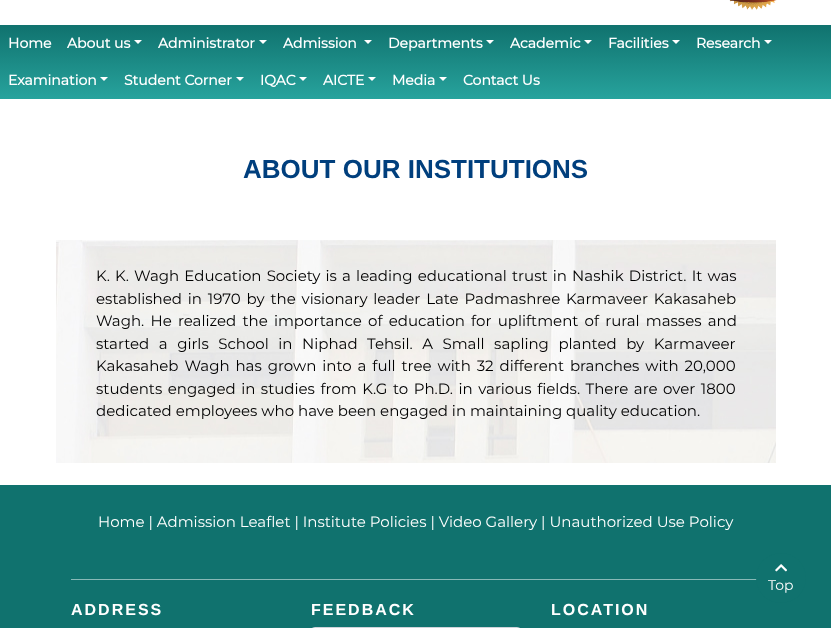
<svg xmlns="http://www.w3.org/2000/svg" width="831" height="628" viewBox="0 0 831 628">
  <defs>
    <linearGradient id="g1" gradientUnits="userSpaceOnUse" x1="416" y1="25" x2="416" y2="99"><stop offset="0" stop-color="rgb(16,114,110)"/><stop offset="1" stop-color="rgb(39,163,157)"/></linearGradient>
  </defs>
  <rect width="100%" height="100%" fill="rgb(255,255,255)"/>
  <image x="729" y="0" width="48" height="10" href="pic1.png"/>
  <rect x="0" y="25" width="831" height="74" fill="url(#g1)"/>
  <g font-family="Montserrat" font-size="14" font-weight="bold" fill="rgb(255,255,255)">
    <text x="8" y="48">Home</text>
    <text x="67" y="48">About us</text>
  </g>
  <path d="M134 40H142L138 44Z" fill="rgb(255,255,255)"/>
  <text x="158" y="48" font-family="Montserrat" font-size="14" font-weight="bold" fill="rgb(255,255,255)">Administrator</text>
  <path d="M259 40H267L263 44Z" fill="rgb(255,255,255)"/>
  <text x="283" y="48" font-family="Montserrat" font-size="14" font-weight="bold" fill="rgb(255,255,255)">Admission</text>
  <path d="M364 40H372L368 44Z" fill="rgb(255,255,255)"/>
  <text x="388" y="48" font-family="Montserrat" font-size="14" font-weight="bold" fill="rgb(255,255,255)">Departments</text>
  <path d="M486 40H494L490 44Z" fill="rgb(255,255,255)"/>
  <text x="510" y="48" font-family="Montserrat" font-size="14" font-weight="bold" fill="rgb(255,255,255)">Academic</text>
  <path d="M584 40H592L588 44Z" fill="rgb(255,255,255)"/>
  <text x="608" y="48" font-family="Montserrat" font-size="14" font-weight="bold" fill="rgb(255,255,255)">Facilities</text>
  <path d="M672 40H680L676 44Z" fill="rgb(255,255,255)"/>
  <text x="696" y="48" font-family="Montserrat" font-size="14" font-weight="bold" fill="rgb(255,255,255)">Research</text>
  <path d="M764 40H772L768 44Z" fill="rgb(255,255,255)"/>
  <text x="8" y="85" font-family="Montserrat" font-size="14" font-weight="bold" fill="rgb(255,255,255)">Examination</text>
  <path d="M100 77H108L104 81Z" fill="rgb(255,255,255)"/>
  <text x="124" y="85" font-family="Montserrat" font-size="14" font-weight="bold" fill="rgb(255,255,255)">Student Corner</text>
  <path d="M236 77H244L240 81Z" fill="rgb(255,255,255)"/>
  <text x="260" y="85" font-family="Montserrat" font-size="14" font-weight="bold" fill="rgb(255,255,255)">IQAC</text>
  <path d="M299 77H307L303 81Z" fill="rgb(255,255,255)"/>
  <text x="323" y="85" font-family="Montserrat" font-size="14" font-weight="bold" fill="rgb(255,255,255)">AICTE</text>
  <path d="M368 77H376L372 81Z" fill="rgb(255,255,255)"/>
  <text x="392" y="85" font-family="Montserrat" font-size="14" font-weight="bold" fill="rgb(255,255,255)">Media</text>
  <path d="M439 77H447L443 81Z" fill="rgb(255,255,255)"/>
  <text x="463" y="85" font-family="Montserrat" font-size="14" font-weight="bold" fill="rgb(255,255,255)">Contact Us</text>
  <text x="243" y="178" font-family="Liberation Sans" font-size="26" font-weight="bold" fill="rgb(0,63,125)">ABOUT OUR INSTITUTIONS</text>
  <image x="56" y="240" width="720" height="223" href="pic2.png"/>
  <g font-family="Montserrat" font-size="15" fill="rgb(0,0,0)">
    <text>
      <tspan x="96" y="281" word-spacing="1.25">K. K. Wagh Education Society is a leading educational trust in Nashik District. It was</tspan>
      <tspan x="96" y="304" word-spacing="1.9">established in 1970 by the visionary leader Late Padmashree Karmaveer Kakasaheb</tspan>
      <tspan x="96" y="326" word-spacing="2.25">Wagh. He realized the importance of education for upliftment of rural masses and</tspan>
      <tspan x="96" y="349" word-spacing="5.6">started a girls School in Niphad Tehsil. A Small sapling planted by Karmaveer</tspan>
      <tspan x="96" y="371" word-spacing="2">Kakasaheb Wagh has grown into a full tree with 32 different branches with 20,000</tspan>
      <tspan x="96" y="394" word-spacing="1.6">students engaged in studies from K.G to Ph.D. in various fields. There are over 1800</tspan>
      <tspan x="96" y="416">dedicated employees who have been engaged in maintaining quality education.</tspan>
    </text>
  </g>
  <rect x="0" y="485" width="831" height="143" fill="rgb(16,114,110)"/>
  <text x="98" y="527" font-family="Montserrat" font-size="15" fill="rgb(255,255,255)">Home | Admission Leaflet | Institute Policies | Video Gallery | Unauthorized Use Policy</text>
  <rect x="71" y="579" width="690" height="1" fill="rgb(136,185,183)"/>
  <g font-family="Liberation Sans" font-size="16" font-weight="bold" letter-spacing="2" fill="rgb(255,255,255)">
    <text x="71" y="615">ADDRESS</text>
    <text x="311" y="615">FEEDBACK</text>
  </g>
  <rect x="311.5" y="627.5" width="209" height="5" rx="3.5" fill="none" stroke="rgb(206,212,218)"/>
  <text x="551" y="615" font-family="Liberation Sans" font-size="16" font-weight="bold" letter-spacing="2" fill="rgb(255,255,255)">LOCATION</text>
  <circle cx="781" cy="578" r="25" fill="rgb(16,114,110)"/>
  <image x="775" y="564" width="12" height="8" href="pic3.png"/>
  <text x="768" y="590" font-family="Montserrat" font-size="14" fill="rgb(255,255,255)">Top</text>
</svg>
